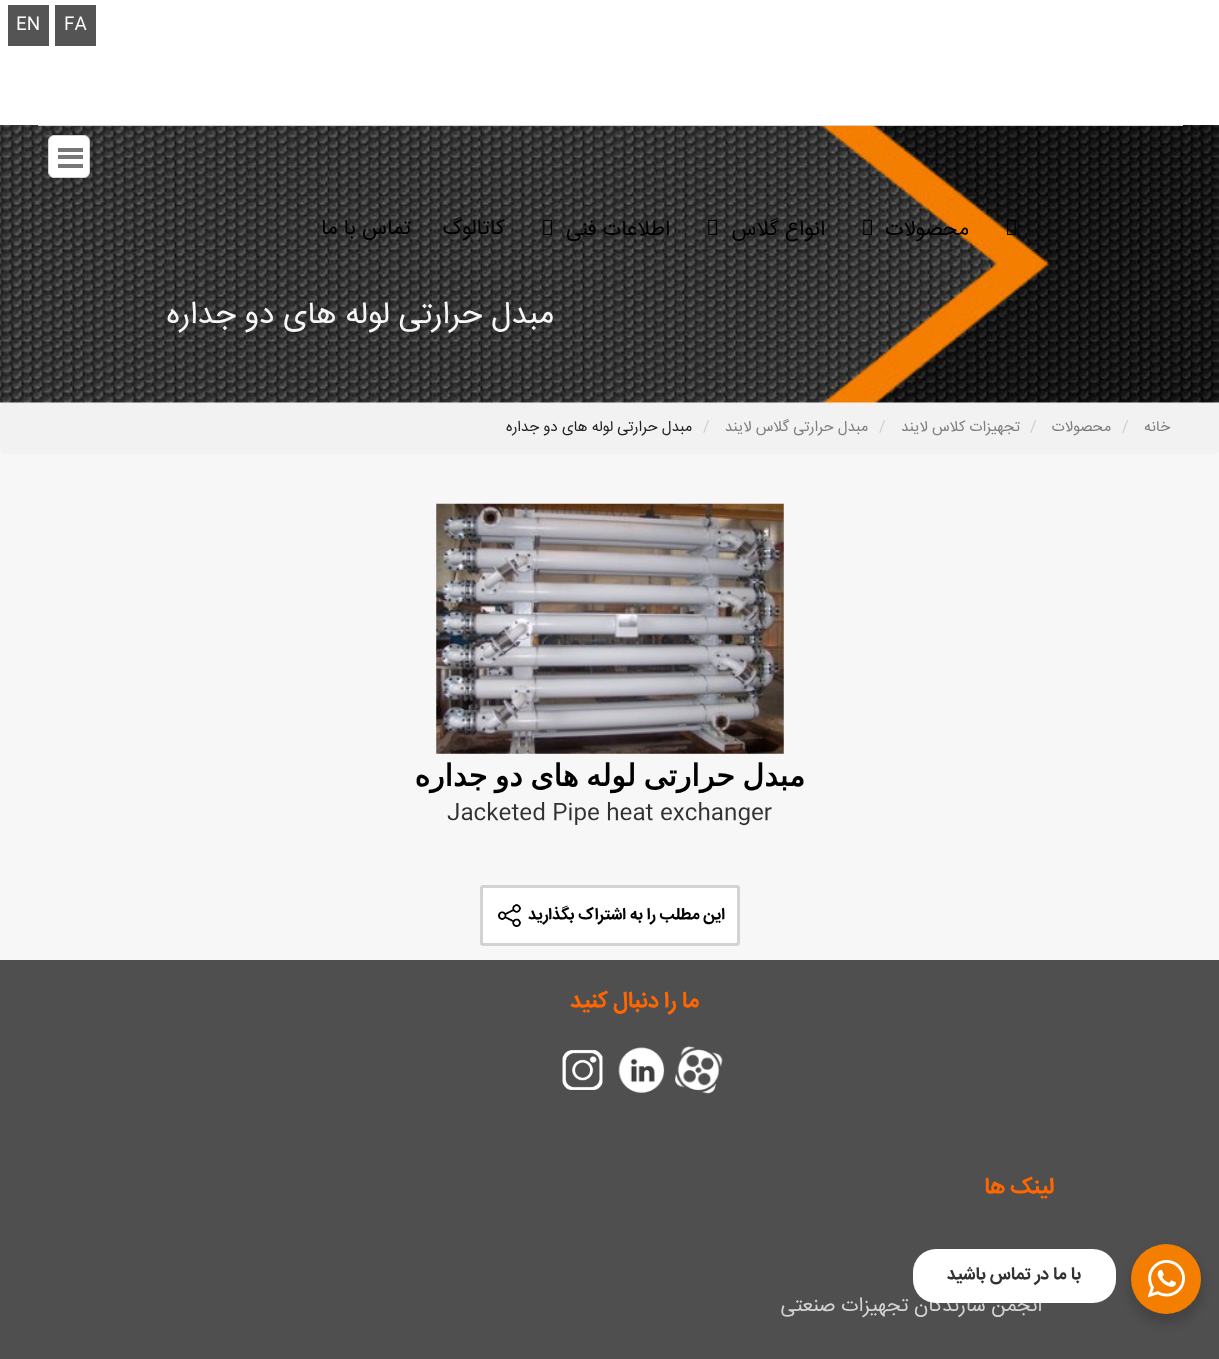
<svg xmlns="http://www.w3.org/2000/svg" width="1219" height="1359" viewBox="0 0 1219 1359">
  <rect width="100%" height="100%" fill="rgb(247,247,247)"/>
  <rect x="0" y="0" width="1219" height="125" fill="rgb(255,255,255)"/>
  <rect x="55" y="5" width="41" height="41" fill="rgb(84,84,84)"/>
  <text x="64" y="29" font-family="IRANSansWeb" font-size="17.5" fill="rgb(255,255,255)">FA</text>
  <rect x="8" y="5" width="41" height="41" fill="rgb(84,84,84)"/>
  <text x="16" y="29" font-family="IRANSansWeb" font-size="17.5" fill="rgb(255,255,255)">EN</text>
  <image x="0" y="125" width="1219" height="278" href="pic5.png"/>
  <rect x="38" y="125" width="1145" height="1" fill="rgb(211,211,211)"/>
  <rect x="48.5" y="135.5" width="41" height="42" rx="5.5" fill="rgb(255,255,255)" stroke="rgb(211,211,211)"/>
  <rect x="58" y="148" width="25" height="4" fill="rgb(119,119,119)"/>
  <rect x="58" y="155" width="25" height="4" fill="rgb(119,119,119)"/>
  <rect x="58" y="164" width="25" height="4" fill="rgb(119,119,119)"/>
  <image x="1007" y="219" width="9" height="16" href="pic1.png"/>
  <text x="969" y="235" font-family="IRANSansWeb" font-size="21.25" direction="rtl" fill="rgb(0,0,0)">محصولات</text>
  <image x="863" y="219" width="9" height="16" href="pic2.png"/>
  <text x="825" y="235" font-family="IRANSansWeb" font-size="21.25" direction="rtl" fill="rgb(0,0,0)">انواع گلاس</text>
  <image x="708" y="219" width="9" height="16" href="pic3.png"/>
  <text x="670" y="235" font-family="IRANSansWeb" font-size="21.25" direction="rtl" fill="rgb(0,0,0)">اطلاعات فنی</text>
  <image x="543" y="219" width="9" height="16" href="pic4.png"/>
  <g font-family="IRANSansWeb" font-size="21.25" direction="rtl" fill="rgb(0,0,0)">
    <text x="505" y="234">کاتالوگ</text>
    <text x="411" y="234">تماس با ما</text>
  </g>
  <text x="554" y="323" font-family="IRANSansWeb" font-size="31.25" direction="rtl" fill="rgb(246,246,246)">مبدل حرارتی لوله های دو جداره</text>
  <rect x="0" y="403" width="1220" height="51" rx="5" fill="rgb(242,242,242)"/>
  <text x="1170" y="431" font-family="IRANSansWeb" font-size="15" direction="rtl" fill="rgb(126,126,126)">خانه</text>
  <text x="1122" y="431" font-family="IRANSansWeb" font-size="15" fill="rgb(204,204,204)">/</text>
  <text x="1111" y="431" font-family="IRANSansWeb" font-size="15" direction="rtl" fill="rgb(126,126,126)">محصولات</text>
  <text x="1030" y="431" font-family="IRANSansWeb" font-size="15" fill="rgb(204,204,204)">/</text>
  <text x="1020" y="431" font-family="IRANSansWeb" font-size="15" direction="rtl" fill="rgb(126,126,126)">تجهیزات کلاس لایند</text>
  <text x="879" y="431" font-family="IRANSansWeb" font-size="15" fill="rgb(204,204,204)">/</text>
  <text x="868" y="431" font-family="IRANSansWeb" font-size="15" direction="rtl" fill="rgb(126,126,126)">مبدل حرارتی گلاس لایند</text>
  <text x="703" y="431" font-family="IRANSansWeb" font-size="15" fill="rgb(204,204,204)">/</text>
  <text x="692" y="431" font-family="IRANSansWeb" font-size="15" direction="rtl" fill="rgb(34,34,34)">مبدل حرارتی لوله های دو جداره</text>
  <image x="436" y="503" width="348" height="251" href="pic6.png"/>
  <text x="805" y="786" word-spacing="-2" font-family="DejaVu Sans" font-size="30" font-weight="bold" direction="rtl" fill="rgb(0,0,0)">مبدل حرارتی لوله های دو جداره</text>
  <text x="447" y="819" font-family="IRANSansWeb" font-size="22.5" fill="rgb(50,50,50)">Jacketed Pipe heat exchanger</text>
  <rect x="481.5" y="886.5" width="257" height="58" rx="2.5" fill="none" stroke="rgb(211,211,211)" stroke-width="3"/>
  <rect x="481.5" y="886.5" width="257" height="58" rx="2.5" fill="rgb(255,255,255)" stroke="rgb(211,211,211)" stroke-width="3"/>
  <text x="725" y="919" font-family="IRANSansWeb" font-size="16.25" font-weight="bold" direction="rtl" fill="rgb(0,0,0)">این مطلب را به اشتراک بگذارید</text>
  <image x="498" y="904" width="23" height="23" href="pic7.png"/>
  <rect x="0" y="960" width="1219" height="399" fill="rgb(79,79,79)"/>
  <text x="1042" y="1311" font-family="IRANSansWeb" font-size="20" direction="rtl" fill="rgb(211,211,211)">انجمن سازندگان تجهیزات صنعتی</text>
  <rect x="913" y="1249" width="203" height="54" rx="23" fill="rgb(255,255,255)"/>
  <rect x="1129" y="1249" width="75" height="75" rx="37.5" fill="rgba(0,0,0,0.14)" filter="blur(5px)"/>
  <circle cx="1166" cy="1279" r="35" fill="rgb(244,126,0)"/>
  <image x="1148" y="1260" width="37" height="38" href="pic8.png"/>
  <text x="699" y="1007" font-family="IRANSansWeb" font-size="22.5" font-weight="bold" direction="rtl" fill="rgb(255,102,0)">ما را دنبال کنید</text>
  <image x="675" y="1046" width="48" height="48" href="pic9.png"/>
  <image x="618" y="1047" width="47" height="46" href="pic10.png"/>
  <image x="562" y="1050" width="41" height="40" href="pic11.png"/>
  <text x="1054" y="1193" font-family="IRANSansWeb" font-size="22.5" font-weight="bold" direction="rtl" fill="rgb(255,102,0)">لینک ها</text>
  <text x="1081" y="1279" font-family="IRANSansWeb" font-size="17.5" font-weight="bold" direction="rtl" fill="rgb(50,50,50)">با ما در تماس باشید</text>
</svg>
